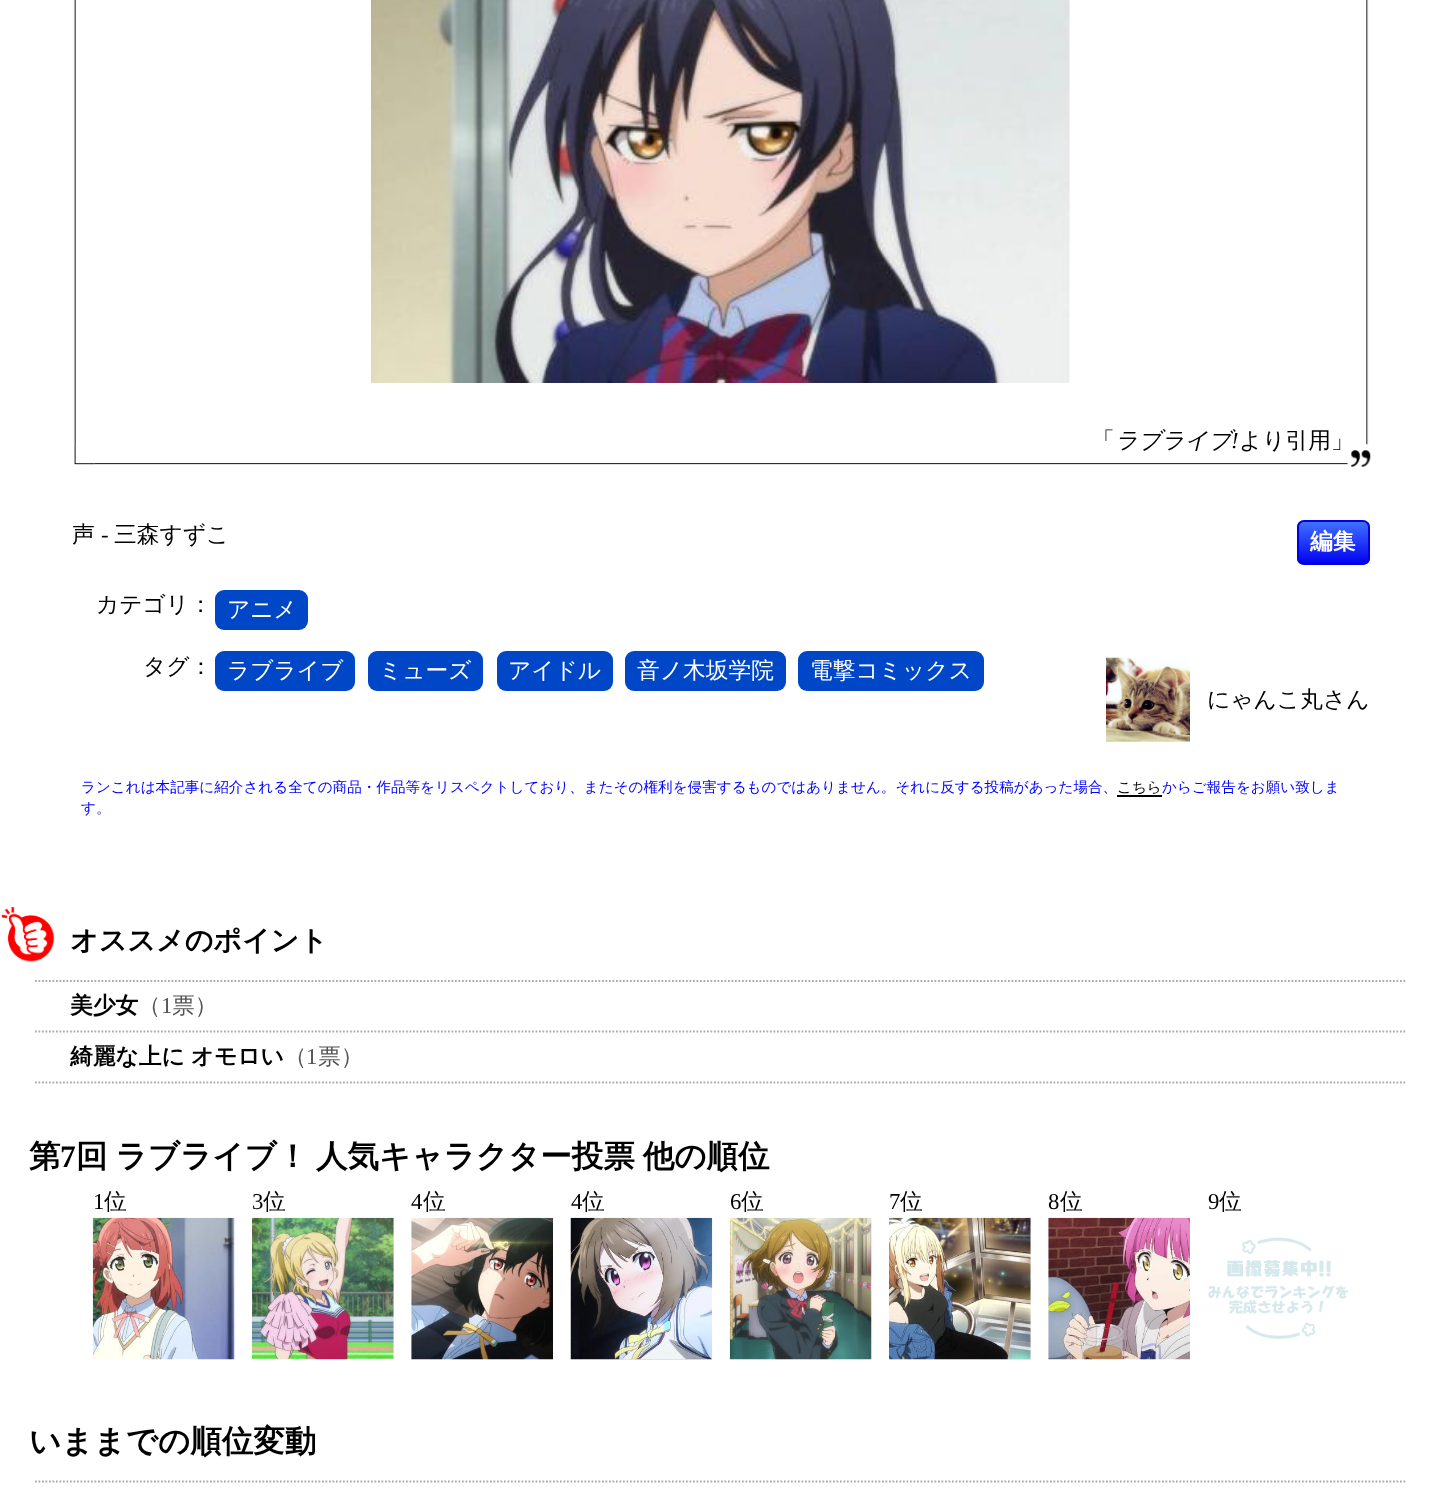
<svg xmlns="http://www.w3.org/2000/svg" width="1442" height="1495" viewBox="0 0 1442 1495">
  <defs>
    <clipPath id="clip1"><rect x="1297" y="520" width="73" height="45" rx="7"/></clipPath>
    <linearGradient id="g1" gradientUnits="userSpaceOnUse" x1="1299" y1="522" x2="1299" y2="564"><stop offset="0" stop-color="rgb(64,112,255)"/><stop offset="1" stop-color="rgb(0,0,240)"/></linearGradient>
  </defs>
  <rect width="100%" height="100%" fill="rgb(255,255,255)"/>
  <image x="73" y="0" width="1298" height="467" href="pic1.png"/>
  <image x="371" y="0" width="700" height="383" href="pic2.png"/>
  <text x="1092" y="448" font-family="WenQuanYi Zen Hei" font-size="22.75" font-weight="500" fill="rgb(0,0,0)">「</text>
  <text x="1115" y="448" font-family="WenQuanYi Zen Hei" font-size="22.75" font-weight="500" font-style="italic" fill="rgb(0,0,0)">ラブライブ</text>
  <text x="1239" y="448" font-family="WenQuanYi Zen Hei" font-size="22.75" font-weight="500" fill="rgb(0,0,0)">より引用」</text>
  <text x="1231" y="448" font-family="Liberation Serif" font-size="22.75" font-style="italic" fill="rgb(0,0,0)">!</text>
  <text x="72" y="542" font-family="WenQuanYi Zen Hei" font-size="22.75" font-weight="500" fill="rgb(0,0,0)">声</text>
  <text x="101" y="542" font-family="Liberation Serif" font-size="22.75" fill="rgb(0,0,0)">-</text>
  <g font-family="WenQuanYi Zen Hei" font-size="22.75" font-weight="500" fill="rgb(0,0,0)">
    <text x="114" y="542">三森すずこ</text>
    <text x="96" y="612">カテゴリ：</text>
  </g>
  <rect x="215" y="590" width="93" height="40" rx="9" fill="rgb(0,71,199)"/>
  <text x="227" y="617" font-family="WenQuanYi Zen Hei" font-size="22.75" font-weight="500" fill="rgb(255,255,255)">アニメ</text>
  <text x="143" y="674" font-family="WenQuanYi Zen Hei" font-size="22.75" font-weight="500" fill="rgb(0,0,0)">タグ：</text>
  <rect x="215" y="651" width="140" height="40" rx="9" fill="rgb(0,71,199)"/>
  <text x="227" y="678" font-family="WenQuanYi Zen Hei" font-size="22.75" font-weight="500" fill="rgb(255,255,255)">ラブライブ</text>
  <rect x="368" y="651" width="115" height="40" rx="9" fill="rgb(0,71,199)"/>
  <text x="379" y="678" font-family="WenQuanYi Zen Hei" font-size="22.75" font-weight="500" fill="rgb(255,255,255)">ミューズ</text>
  <rect x="497" y="651" width="116" height="40" rx="9" fill="rgb(0,71,199)"/>
  <text x="508" y="678" font-family="WenQuanYi Zen Hei" font-size="22.75" font-weight="500" fill="rgb(255,255,255)">アイドル</text>
  <rect x="625" y="651" width="161" height="40" rx="9" fill="rgb(0,71,199)"/>
  <text x="637" y="678" font-family="WenQuanYi Zen Hei" font-size="22.75" font-weight="500" fill="rgb(255,255,255)">音ノ木坂学院</text>
  <rect x="798" y="651" width="186" height="40" rx="9" fill="rgb(0,71,199)"/>
  <text x="810" y="678" font-family="WenQuanYi Zen Hei" font-size="22.75" font-weight="500" fill="rgb(255,255,255)">電撃コミックス</text>
  <g clip-path="url(#clip1)">
    <rect x="1297" y="522" width="73" height="42" fill="url(#g1)"/>
  </g>
  <rect x="1298" y="521" width="71" height="43" rx="6" fill="none" stroke="rgb(0,0,224)" stroke-width="2"/>
  <text x="1310" y="549" font-family="WenQuanYi Zen Hei" font-size="22.75" font-weight="bold" fill="rgb(255,255,255)">編集</text>
  <image x="1106" y="657" width="84" height="85" href="pic3.png"/>
  <text x="1207" y="707" font-family="WenQuanYi Zen Hei" font-size="22.75" font-weight="500" fill="rgb(0,0,0)">にゃんこ丸さん</text>
  <text x="81" y="792" font-family="WenQuanYi Zen Hei" font-size="14.58" font-weight="500" fill="rgb(0,0,255)">ランこれは本記事に紹介される全ての商品・作品等をリスペクトしており、またその権利を侵害するものではありません。それに反する投稿があった場合、</text>
  <text x="1117" y="792" font-family="WenQuanYi Zen Hei" font-size="14.58" font-weight="500" fill="rgb(0,0,0)">こちら</text>
  <rect x="1117" y="795" width="45" height="2" fill="rgb(0,0,0)"/>
  <g font-family="WenQuanYi Zen Hei" font-size="14.58" font-weight="500" fill="rgb(0,0,255)">
    <text x="1162" y="792">からご報告をお願い致しま</text>
    <text x="81" y="813">す。</text>
  </g>
  <image x="1" y="906" width="54" height="56" href="pic4.png"/>
  <text x="70" y="950" font-family="WenQuanYi Zen Hei" font-size="28" font-weight="bold" fill="rgb(0,0,0)">オススメのポイント</text>
  <path d="M35 981H1407" fill="none" stroke="rgb(170,170,170)" stroke-width="1.8" stroke-dasharray="1.75 1.75"/>
  <path d="M35 1031.5H1407" fill="none" stroke="rgb(170,170,170)" stroke-width="1.8" stroke-dasharray="1.75 1.75"/>
  <text x="70" y="1013" font-family="WenQuanYi Zen Hei" font-size="22.75" font-weight="bold" fill="rgb(0,0,0)">美少女</text>
  <text x="138" y="1013" font-family="WenQuanYi Zen Hei" font-size="22.75" font-weight="500" fill="rgb(85,85,85)">（</text>
  <text x="161" y="1013" font-family="Liberation Serif" font-size="22.75" fill="rgb(85,85,85)">1</text>
  <text x="172" y="1013" font-family="WenQuanYi Zen Hei" font-size="22.75" font-weight="500" fill="rgb(85,85,85)">票）</text>
  <path d="M35 1082.5H1407" fill="none" stroke="rgb(170,170,170)" stroke-width="1.8" stroke-dasharray="1.75 1.75"/>
  <text x="70" y="1064" word-spacing="-1" font-family="WenQuanYi Zen Hei" font-size="22.75" font-weight="bold" fill="rgb(0,0,0)">綺麗な上に オモロい</text>
  <text x="284" y="1064" font-family="WenQuanYi Zen Hei" font-size="22.75" font-weight="500" fill="rgb(85,85,85)">（</text>
  <text x="306" y="1064" font-family="Liberation Serif" font-size="22.75" fill="rgb(85,85,85)">1</text>
  <text x="318" y="1064" font-family="WenQuanYi Zen Hei" font-size="22.75" font-weight="500" fill="rgb(85,85,85)">票）</text>
  <text x="29" y="1167" font-family="WenQuanYi Zen Hei" font-size="31.5" font-weight="bold" fill="rgb(0,0,0)">第</text>
  <text x="60" y="1167" font-family="Liberation Serif" font-size="31.5" font-weight="bold" fill="rgb(0,0,0)">7</text>
  <text x="76" y="1167" word-spacing="-1.5" font-family="WenQuanYi Zen Hei" font-size="31.5" font-weight="bold" fill="rgb(0,0,0)">回 ラブライブ！ 人気キャラクター投票 他の順位</text>
  <text x="93" y="1209" font-family="Liberation Serif" font-size="22.75" fill="rgb(0,0,0)">1</text>
  <text x="104" y="1209" font-family="WenQuanYi Zen Hei" font-size="22.75" font-weight="500" fill="rgb(0,0,0)">位</text>
  <image x="92" y="1217" width="143" height="143" href="pic5.png"/>
  <text x="252" y="1209" font-family="Liberation Serif" font-size="22.75" fill="rgb(0,0,0)">3</text>
  <text x="263" y="1209" font-family="WenQuanYi Zen Hei" font-size="22.75" font-weight="500" fill="rgb(0,0,0)">位</text>
  <image x="252" y="1217" width="142" height="143" href="pic6.png"/>
  <text x="411" y="1209" font-family="Liberation Serif" font-size="22.75" fill="rgb(0,0,0)">4</text>
  <text x="423" y="1209" font-family="WenQuanYi Zen Hei" font-size="22.75" font-weight="500" fill="rgb(0,0,0)">位</text>
  <image x="411" y="1217" width="142" height="143" href="pic7.png"/>
  <text x="571" y="1209" font-family="Liberation Serif" font-size="22.75" fill="rgb(0,0,0)">4</text>
  <text x="582" y="1209" font-family="WenQuanYi Zen Hei" font-size="22.75" font-weight="500" fill="rgb(0,0,0)">位</text>
  <image x="570" y="1217" width="143" height="143" href="pic8.png"/>
  <text x="730" y="1209" font-family="Liberation Serif" font-size="22.75" fill="rgb(0,0,0)">6</text>
  <text x="741" y="1209" font-family="WenQuanYi Zen Hei" font-size="22.75" font-weight="500" fill="rgb(0,0,0)">位</text>
  <image x="729" y="1217" width="143" height="143" href="pic9.png"/>
  <text x="889" y="1209" font-family="Liberation Serif" font-size="22.75" fill="rgb(0,0,0)">7</text>
  <text x="900" y="1209" font-family="WenQuanYi Zen Hei" font-size="22.75" font-weight="500" fill="rgb(0,0,0)">位</text>
  <image x="889" y="1217" width="142" height="143" href="pic10.png"/>
  <text x="1048" y="1209" font-family="Liberation Serif" font-size="22.75" fill="rgb(0,0,0)">8</text>
  <text x="1060" y="1209" font-family="WenQuanYi Zen Hei" font-size="22.75" font-weight="500" fill="rgb(0,0,0)">位</text>
  <image x="1048" y="1217" width="142" height="143" href="pic11.png"/>
  <text x="1208" y="1209" font-family="Liberation Serif" font-size="22.75" fill="rgb(0,0,0)">9</text>
  <text x="1219" y="1209" font-family="WenQuanYi Zen Hei" font-size="22.75" font-weight="500" fill="rgb(0,0,0)">位</text>
  <image x="1208" y="1237" width="141" height="102" href="pic12.png"/>
  <text x="29" y="1452" font-family="WenQuanYi Zen Hei" font-size="31.5" font-weight="bold" fill="rgb(0,0,0)">いままでの順位変動</text>
  <path d="M35 1481.5H1407" fill="none" stroke="rgb(170,170,170)" stroke-width="1.8" stroke-dasharray="1.75 1.75"/>
</svg>
